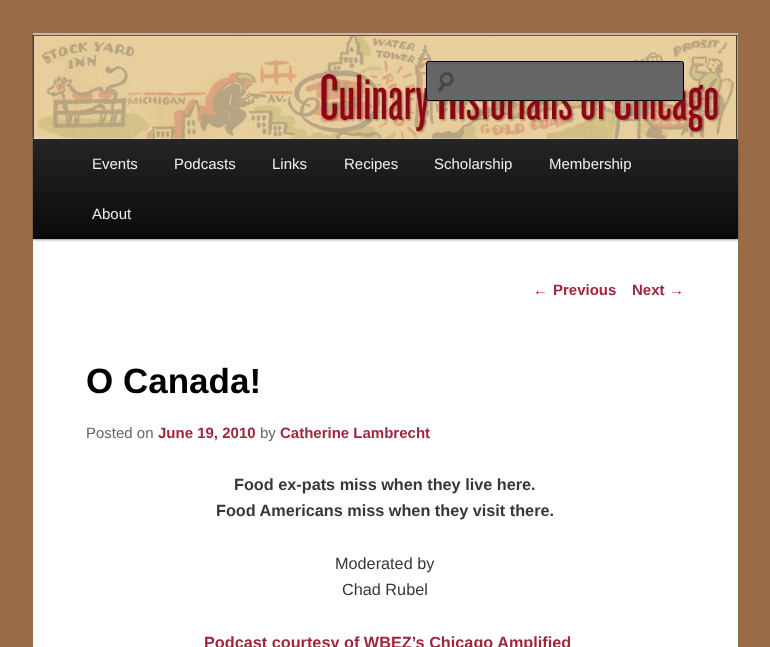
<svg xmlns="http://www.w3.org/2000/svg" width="770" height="647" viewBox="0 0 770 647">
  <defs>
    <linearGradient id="g1" gradientUnits="userSpaceOnUse" x1="385" y1="139" x2="385" y2="239"><stop offset="0" stop-color="rgb(37,37,37)"/><stop offset="1" stop-color="rgb(10,10,10)"/></linearGradient>
  </defs>
  <rect width="100%" height="100%" fill="rgb(155,107,69)"/>
  <rect x="33" y="36" width="705" height="611" fill="rgb(255,255,255)"/>
  <rect x="33" y="33" width="705" height="3" fill="rgb(187,187,187)"/>
  <rect x="33" y="140" width="705" height="100" fill="rgba(0,0,0,0.4)" filter="blur(1px)"/>
  <image x="32" y="35" width="706" height="104" href="pic1.png"/>
  <rect x="426" y="61" width="258" height="40" rx="2.5" fill="rgb(102,102,102)"/>
  <image x="437" y="72" width="17" height="21" href="pic2.png"/>
  <path d="M429 64H681C682 64 682 64 682 65V100L683 99V64L682 63H428V65C428 64 428 64 429 64Z" fill="rgb(92,92,92)"/>
  <rect x="426.5" y="61.5" width="257" height="39" rx="2" fill="none" stroke="rgb(0,0,0)"/>
  <rect x="33" y="139" width="705" height="100" fill="url(#g1)"/>
  <g font-family="Liberation Sans" font-size="15" fill="rgb(238,238,238)">
    <text x="92" y="169">Events</text>
    <text x="174" y="169">Podcasts</text>
    <text x="272" y="169">Links</text>
    <text x="344" y="169">Recipes</text>
    <text x="434" y="169">Scholarship</text>
    <text x="549" y="169">Membership</text>
    <text x="92" y="219">About</text>
  </g>
  <text x="533" y="295" font-family="Liberation Sans" font-size="15" fill="rgb(158,39,61)">←</text>
  <g font-family="Liberation Sans" font-size="15" font-weight="bold" fill="rgb(158,39,61)">
    <text x="553" y="295">Previous</text>
    <text x="632" y="295">Next</text>
  </g>
  <text x="669" y="295" font-family="Liberation Sans" font-size="15" fill="rgb(158,39,61)">→</text>
  <text x="86" y="393" font-family="Liberation Sans" font-size="35" font-weight="bold" fill="rgb(0,0,0)">O Canada!</text>
  <text x="86" y="438" font-family="Liberation Sans" font-size="15" fill="rgb(102,102,102)">Posted on</text>
  <text x="158" y="438" font-family="Liberation Sans" font-size="15" font-weight="bold" fill="rgb(158,39,61)">June 19, 2010</text>
  <text x="260" y="438" font-family="Liberation Sans" font-size="15" fill="rgb(102,102,102)">by</text>
  <text x="280" y="438" font-family="Liberation Sans" font-size="15" font-weight="bold" fill="rgb(158,39,61)">Catherine Lambrecht</text>
  <g font-family="Liberation Sans" font-size="16.25" font-weight="bold" fill="rgb(55,55,55)">
    <text x="234" y="490">Food ex-pats miss when they live here.</text>
    <text x="216" y="516">Food Americans miss when they visit there.</text>
  </g>
  <g font-family="Liberation Sans" font-size="16.25" fill="rgb(55,55,55)">
    <text x="335" y="569">Moderated by</text>
    <text x="342" y="595">Chad Rubel</text>
  </g>
  <text x="204" y="648" font-family="Liberation Sans" font-size="16.25" font-weight="bold" fill="rgb(158,39,61)">Podcast courtesy of WBEZ’s Chicago Amplified</text>
</svg>
